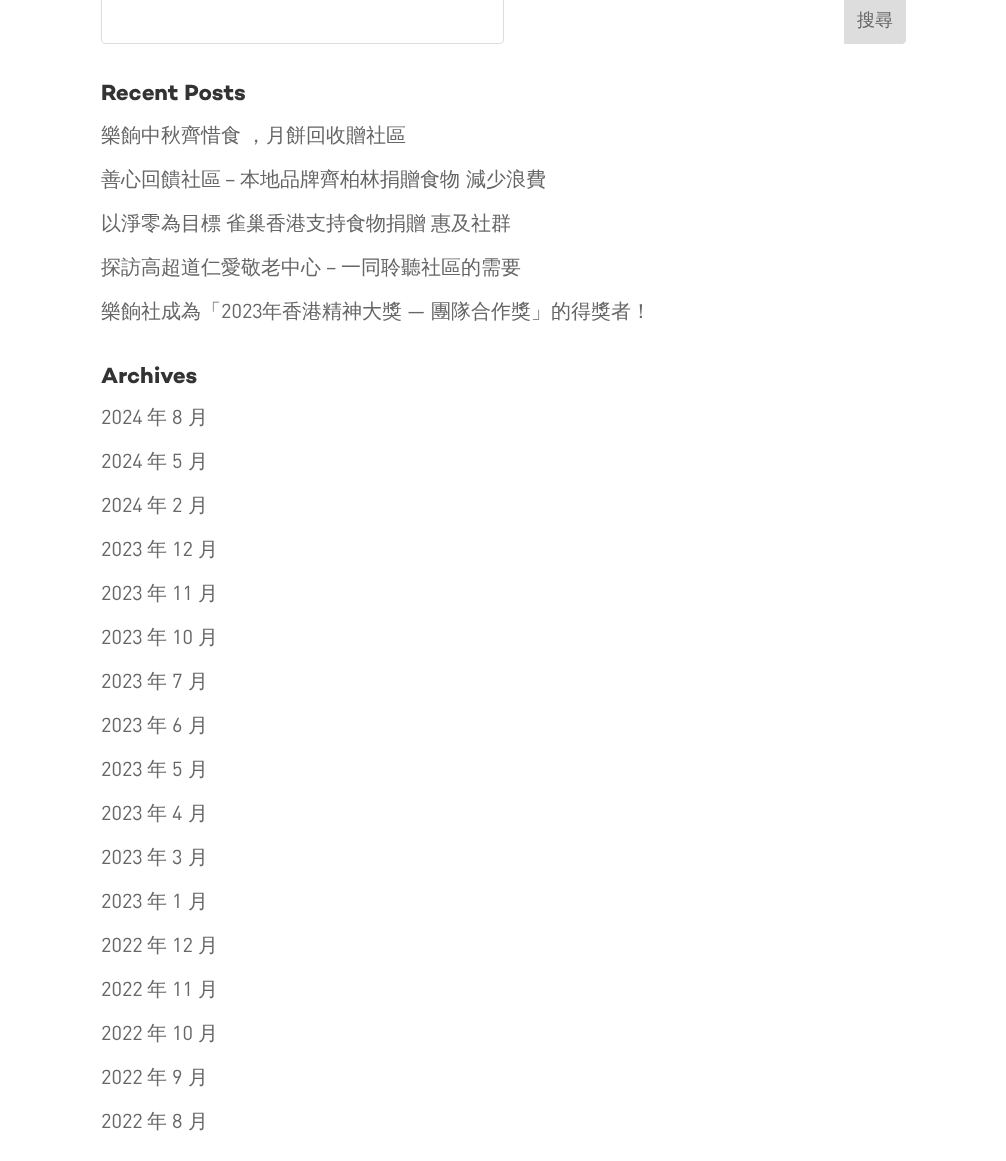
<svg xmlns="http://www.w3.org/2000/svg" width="1006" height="1161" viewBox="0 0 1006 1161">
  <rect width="100%" height="100%" fill="rgb(255,255,255)"/>
  <rect x="101.5" y="-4.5" width="402" height="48" rx="3.5" fill="none" stroke="rgb(221,221,221)"/>
  <path d="M844.5-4.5H902C904-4.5 905.5-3 905.5-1V40C905.5 42 904 43.5 902 43.5H844.5Z" fill="rgb(221,221,221)" stroke="rgb(221,221,221)"/>
  <text x="857" y="26" font-family="WenQuanYi Zen Hei" font-size="18" font-weight="500" fill="rgb(102,102,102)">搜尋</text>
  <text x="101" y="100" font-family="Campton" font-size="22.5" font-weight="bold" fill="rgb(51,51,51)">Recent Posts</text>
  <g font-family="WenQuanYi Zen Hei" font-size="20" font-weight="500" fill="rgb(102,102,102)">
    <text x="101" y="142" word-spacing="-1">樂餉中秋齊惜食 ，月餅回收贈社區</text>
    <text x="101" y="186">善心回饋社區</text>
  </g>
  <text x="225" y="186" font-family="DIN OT" font-size="20" fill="rgb(102,102,102)">–</text>
  <g font-family="WenQuanYi Zen Hei" font-size="20" font-weight="500" fill="rgb(102,102,102)">
    <text x="240" y="186">本地品牌齊柏林捐贈食物 減少浪費</text>
    <text x="101" y="230">以淨零為目標</text>
    <text x="226" y="230" word-spacing="-1">雀巢香港支持食物捐贈 惠及社群</text>
    <text x="101" y="274">探訪高超道仁愛敬老中心</text>
  </g>
  <text x="326" y="274" font-family="DIN OT" font-size="20" fill="rgb(102,102,102)">–</text>
  <g font-family="WenQuanYi Zen Hei" font-size="20" font-weight="500" fill="rgb(102,102,102)">
    <text x="341" y="274">一同聆聽社區的需要</text>
    <text x="101" y="318">樂餉社成為「</text>
  </g>
  <text x="221" y="318" font-family="DIN OT" font-size="20" fill="rgb(102,102,102)">2023</text>
  <text x="262" y="318" font-family="WenQuanYi Zen Hei" font-size="20" font-weight="500" fill="rgb(102,102,102)">年香港精神大獎</text>
  <text x="407" y="318" font-family="DIN OT" font-size="20" fill="rgb(102,102,102)">—</text>
  <text x="431" y="318" font-family="WenQuanYi Zen Hei" font-size="20" font-weight="500" fill="rgb(102,102,102)">團隊合作獎」的得獎者！</text>
  <text x="101" y="383" font-family="Campton" font-size="22.5" font-weight="bold" fill="rgb(51,51,51)">Archives</text>
  <text x="101" y="424" font-family="DIN OT" font-size="20" fill="rgb(102,102,102)">2024</text>
  <text x="147" y="424" font-family="WenQuanYi Zen Hei" font-size="20" font-weight="500" fill="rgb(102,102,102)">年</text>
  <text x="172" y="424" font-family="DIN OT" font-size="20" fill="rgb(102,102,102)">8</text>
  <text x="188" y="424" font-family="WenQuanYi Zen Hei" font-size="20" font-weight="500" fill="rgb(102,102,102)">月</text>
  <text x="101" y="468" font-family="DIN OT" font-size="20" fill="rgb(102,102,102)">2024</text>
  <text x="147" y="468" font-family="WenQuanYi Zen Hei" font-size="20" font-weight="500" fill="rgb(102,102,102)">年</text>
  <text x="172" y="468" font-family="DIN OT" font-size="20" fill="rgb(102,102,102)">5</text>
  <text x="188" y="468" font-family="WenQuanYi Zen Hei" font-size="20" font-weight="500" fill="rgb(102,102,102)">月</text>
  <text x="101" y="512" font-family="DIN OT" font-size="20" fill="rgb(102,102,102)">2024</text>
  <text x="147" y="512" font-family="WenQuanYi Zen Hei" font-size="20" font-weight="500" fill="rgb(102,102,102)">年</text>
  <text x="172" y="512" font-family="DIN OT" font-size="20" fill="rgb(102,102,102)">2</text>
  <text x="188" y="512" font-family="WenQuanYi Zen Hei" font-size="20" font-weight="500" fill="rgb(102,102,102)">月</text>
  <text x="101" y="556" font-family="DIN OT" font-size="20" fill="rgb(102,102,102)">2023</text>
  <text x="147" y="556" font-family="WenQuanYi Zen Hei" font-size="20" font-weight="500" fill="rgb(102,102,102)">年</text>
  <text x="172" y="556" font-family="DIN OT" font-size="20" fill="rgb(102,102,102)">12</text>
  <text x="198" y="556" font-family="WenQuanYi Zen Hei" font-size="20" font-weight="500" fill="rgb(102,102,102)">月</text>
  <text x="101" y="600" font-family="DIN OT" font-size="20" fill="rgb(102,102,102)">2023</text>
  <text x="147" y="600" font-family="WenQuanYi Zen Hei" font-size="20" font-weight="500" fill="rgb(102,102,102)">年</text>
  <text x="172" y="600" font-family="DIN OT" font-size="20" fill="rgb(102,102,102)">11</text>
  <text x="198" y="600" font-family="WenQuanYi Zen Hei" font-size="20" font-weight="500" fill="rgb(102,102,102)">月</text>
  <text x="101" y="644" font-family="DIN OT" font-size="20" fill="rgb(102,102,102)">2023</text>
  <text x="147" y="644" font-family="WenQuanYi Zen Hei" font-size="20" font-weight="500" fill="rgb(102,102,102)">年</text>
  <text x="172" y="644" font-family="DIN OT" font-size="20" fill="rgb(102,102,102)">10</text>
  <text x="198" y="644" font-family="WenQuanYi Zen Hei" font-size="20" font-weight="500" fill="rgb(102,102,102)">月</text>
  <text x="101" y="688" font-family="DIN OT" font-size="20" fill="rgb(102,102,102)">2023</text>
  <text x="147" y="688" font-family="WenQuanYi Zen Hei" font-size="20" font-weight="500" fill="rgb(102,102,102)">年</text>
  <text x="172" y="688" font-family="DIN OT" font-size="20" fill="rgb(102,102,102)">7</text>
  <text x="188" y="688" font-family="WenQuanYi Zen Hei" font-size="20" font-weight="500" fill="rgb(102,102,102)">月</text>
  <text x="101" y="732" font-family="DIN OT" font-size="20" fill="rgb(102,102,102)">2023</text>
  <text x="147" y="732" font-family="WenQuanYi Zen Hei" font-size="20" font-weight="500" fill="rgb(102,102,102)">年</text>
  <text x="172" y="732" font-family="DIN OT" font-size="20" fill="rgb(102,102,102)">6</text>
  <text x="188" y="732" font-family="WenQuanYi Zen Hei" font-size="20" font-weight="500" fill="rgb(102,102,102)">月</text>
  <text x="101" y="776" font-family="DIN OT" font-size="20" fill="rgb(102,102,102)">2023</text>
  <text x="147" y="776" font-family="WenQuanYi Zen Hei" font-size="20" font-weight="500" fill="rgb(102,102,102)">年</text>
  <text x="172" y="776" font-family="DIN OT" font-size="20" fill="rgb(102,102,102)">5</text>
  <text x="188" y="776" font-family="WenQuanYi Zen Hei" font-size="20" font-weight="500" fill="rgb(102,102,102)">月</text>
  <text x="101" y="820" font-family="DIN OT" font-size="20" fill="rgb(102,102,102)">2023</text>
  <text x="147" y="820" font-family="WenQuanYi Zen Hei" font-size="20" font-weight="500" fill="rgb(102,102,102)">年</text>
  <text x="172" y="820" font-family="DIN OT" font-size="20" fill="rgb(102,102,102)">4</text>
  <text x="188" y="820" font-family="WenQuanYi Zen Hei" font-size="20" font-weight="500" fill="rgb(102,102,102)">月</text>
  <text x="101" y="864" font-family="DIN OT" font-size="20" fill="rgb(102,102,102)">2023</text>
  <text x="147" y="864" font-family="WenQuanYi Zen Hei" font-size="20" font-weight="500" fill="rgb(102,102,102)">年</text>
  <text x="172" y="864" font-family="DIN OT" font-size="20" fill="rgb(102,102,102)">3</text>
  <text x="188" y="864" font-family="WenQuanYi Zen Hei" font-size="20" font-weight="500" fill="rgb(102,102,102)">月</text>
  <text x="101" y="908" font-family="DIN OT" font-size="20" fill="rgb(102,102,102)">2023</text>
  <text x="147" y="908" font-family="WenQuanYi Zen Hei" font-size="20" font-weight="500" fill="rgb(102,102,102)">年</text>
  <text x="172" y="908" font-family="DIN OT" font-size="20" fill="rgb(102,102,102)">1</text>
  <text x="188" y="908" font-family="WenQuanYi Zen Hei" font-size="20" font-weight="500" fill="rgb(102,102,102)">月</text>
  <text x="101" y="952" font-family="DIN OT" font-size="20" fill="rgb(102,102,102)">2022</text>
  <text x="147" y="952" font-family="WenQuanYi Zen Hei" font-size="20" font-weight="500" fill="rgb(102,102,102)">年</text>
  <text x="172" y="952" font-family="DIN OT" font-size="20" fill="rgb(102,102,102)">12</text>
  <text x="198" y="952" font-family="WenQuanYi Zen Hei" font-size="20" font-weight="500" fill="rgb(102,102,102)">月</text>
  <text x="101" y="996" font-family="DIN OT" font-size="20" fill="rgb(102,102,102)">2022</text>
  <text x="147" y="996" font-family="WenQuanYi Zen Hei" font-size="20" font-weight="500" fill="rgb(102,102,102)">年</text>
  <text x="172" y="996" font-family="DIN OT" font-size="20" fill="rgb(102,102,102)">11</text>
  <text x="198" y="996" font-family="WenQuanYi Zen Hei" font-size="20" font-weight="500" fill="rgb(102,102,102)">月</text>
  <text x="101" y="1040" font-family="DIN OT" font-size="20" fill="rgb(102,102,102)">2022</text>
  <text x="147" y="1040" font-family="WenQuanYi Zen Hei" font-size="20" font-weight="500" fill="rgb(102,102,102)">年</text>
  <text x="172" y="1040" font-family="DIN OT" font-size="20" fill="rgb(102,102,102)">10</text>
  <text x="198" y="1040" font-family="WenQuanYi Zen Hei" font-size="20" font-weight="500" fill="rgb(102,102,102)">月</text>
  <text x="101" y="1084" font-family="DIN OT" font-size="20" fill="rgb(102,102,102)">2022</text>
  <text x="147" y="1084" font-family="WenQuanYi Zen Hei" font-size="20" font-weight="500" fill="rgb(102,102,102)">年</text>
  <text x="172" y="1084" font-family="DIN OT" font-size="20" fill="rgb(102,102,102)">9</text>
  <text x="188" y="1084" font-family="WenQuanYi Zen Hei" font-size="20" font-weight="500" fill="rgb(102,102,102)">月</text>
  <text x="101" y="1128" font-family="DIN OT" font-size="20" fill="rgb(102,102,102)">2022</text>
  <text x="147" y="1128" font-family="WenQuanYi Zen Hei" font-size="20" font-weight="500" fill="rgb(102,102,102)">年</text>
  <text x="172" y="1128" font-family="DIN OT" font-size="20" fill="rgb(102,102,102)">8</text>
  <text x="188" y="1128" font-family="WenQuanYi Zen Hei" font-size="20" font-weight="500" fill="rgb(102,102,102)">月</text>
</svg>
